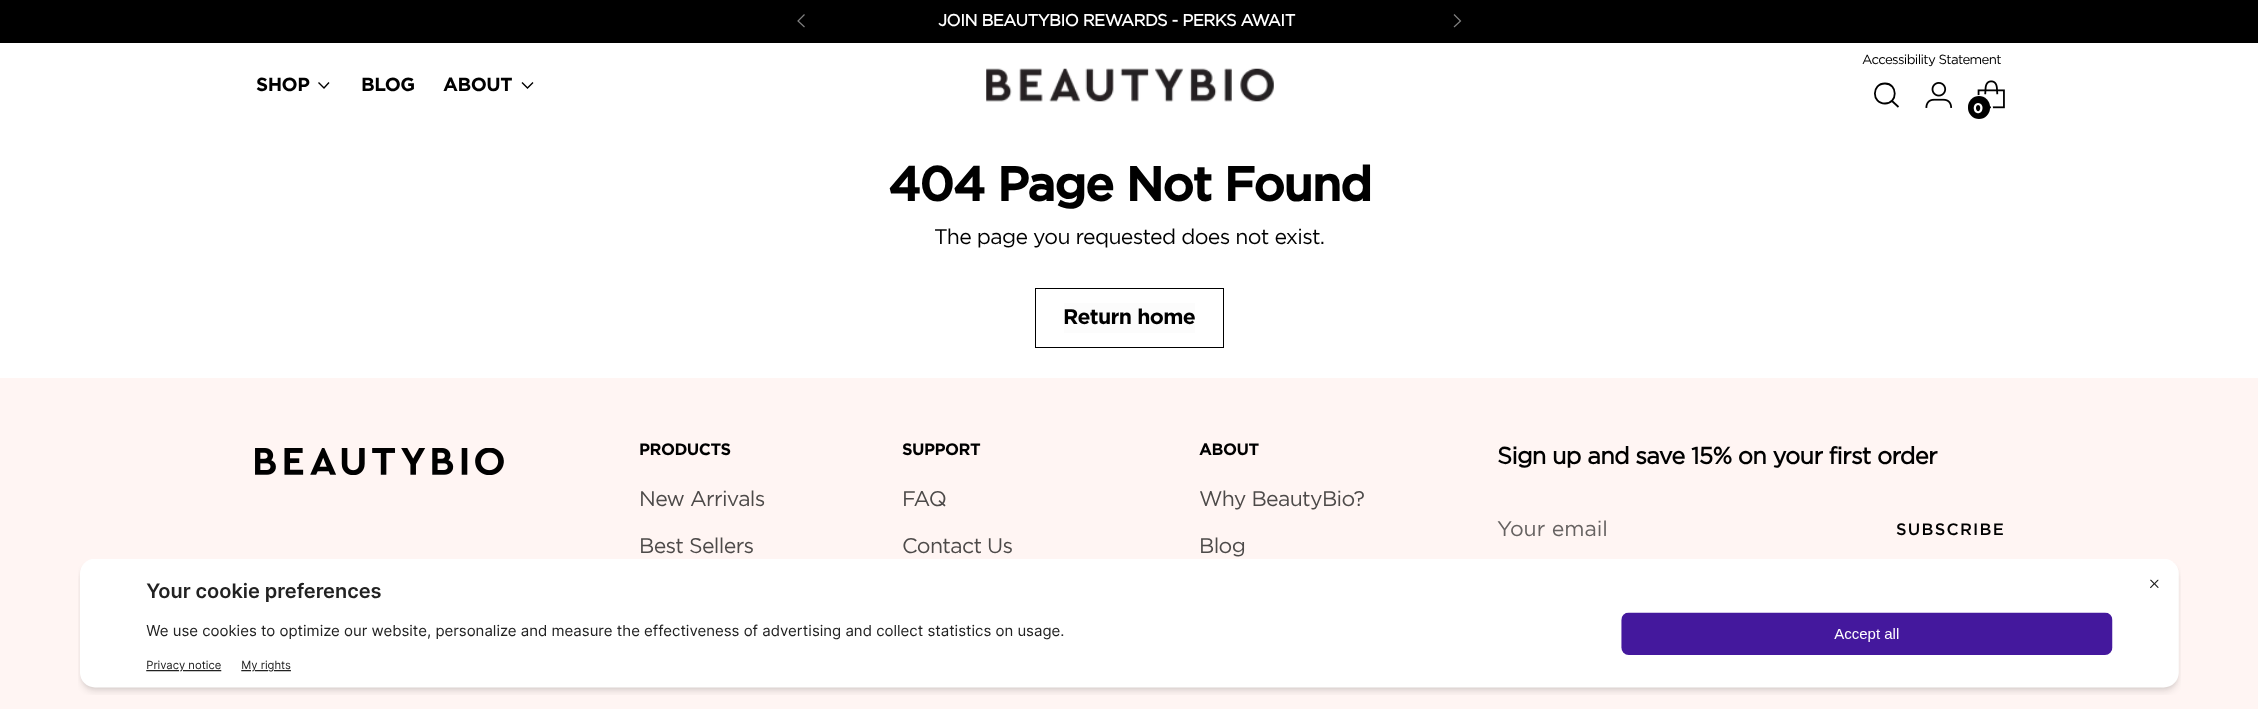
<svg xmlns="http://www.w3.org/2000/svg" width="2258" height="709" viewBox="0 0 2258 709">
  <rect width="100%" height="100%" fill="rgb(255,255,255)"/>
  <rect x="0" y="0" width="2258" height="43" fill="rgb(0,0,0)"/>
  <path d="M804.5 14.5L798 21L804.5 27" fill="none" stroke="rgb(128,128,128)" stroke-width="1.2"/>
  <path d="M1454 27L1460.5 21L1454 14.5" fill="none" stroke="rgb(128,128,128)" stroke-width="1.2"/>
  <text x="938" y="26" font-family="'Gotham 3'" font-size="16.5" font-weight="bold" letter-spacing="-0.5" fill="rgb(255,255,255)">JOIN BEAUTYBIO REWARDS - PERKS AWAIT</text>
  <text x="256" y="91" font-family="'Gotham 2'" font-size="19" font-weight="bold" letter-spacing="-0.5" fill="rgb(0,0,0)">SHOP</text>
  <path d="M318.5 82.5L324 88L329 82.5" fill="none" stroke="rgb(0,0,0)" stroke-width="1.4"/>
  <g font-family="'Gotham 2'" font-size="19" font-weight="bold" letter-spacing="-0.5" fill="rgb(0,0,0)">
    <text x="361" y="91">BLOG</text>
    <text x="443" y="91">ABOUT</text>
  </g>
  <path d="M522 82.5L527.5 88L533 82.5" fill="none" stroke="rgb(0,0,0)" stroke-width="1.4"/>
  <image x="986" y="68" width="288" height="34" href="pic1.png"/>
  <text x="1862" y="64" font-family="Gotham" font-size="13.25" letter-spacing="-0.65" fill="rgb(0,0,0)">Accessibility Statement</text>
  <path d="M1885 103.5C1898 103.5 1898 83.5 1885 83.5C1871.5 83.5 1871.5 103.5 1885 103.5Z" fill="none" stroke="rgb(0,0,0)" stroke-width="1.8" stroke-linecap="round"/>
  <path d="M1892 101L1898.5 107" fill="none" stroke="rgb(0,0,0)" stroke-width="1.8"/>
  <image x="1925" y="82" width="28" height="26" href="pic2.png"/>
  <image x="1977" y="80" width="28" height="29" href="pic3.png"/>
  <rect x="1967" y="96" width="25" height="24" rx="12" fill="none" stroke="rgb(255,255,255)" stroke-width="2"/>
  <rect x="1968" y="96" width="22" height="23" rx="11" fill="rgb(0,0,0)"/>
  <text x="1973" y="113" font-family="'Gotham 2'" font-size="14" font-weight="bold" fill="rgb(255,255,255)">0</text>
  <text x="888" y="201" font-family="Gotham" font-size="48.1" font-weight="bold" letter-spacing="-1.4" fill="rgb(0,0,0)">404 Page Not Found</text>
  <text x="934" y="244" font-family="Gotham" font-size="21.25" letter-spacing="-0.65" fill="rgb(0,0,0)">The page you requested does not exist.</text>
  <rect x="1035.5" y="288.5" width="188" height="59" fill="none" stroke="rgb(0,0,0)"/>
  <rect x="1064" y="303" width="131" height="30" fill="rgb(252,252,252)"/>
  <text x="1063" y="324" font-family="'Gotham 2'" font-size="21.25" font-weight="bold" letter-spacing="-0.65" fill="rgb(0,0,0)">Return home</text>
  <rect x="0" y="378" width="2258" height="331" fill="rgb(255,245,243)"/>
  <image x="255" y="448" width="249" height="27" href="pic4.png"/>
  <text x="639" y="455" font-family="'Gotham 2'" font-size="16.5" font-weight="bold" letter-spacing="-0.5" fill="rgb(0,0,0)">PRODUCTS</text>
  <g font-family="Gotham" font-size="21.25" letter-spacing="-0.65" fill="rgb(77,74,73)">
    <text x="639" y="506">New Arrivals</text>
    <text x="639" y="553">Best Sellers</text>
  </g>
  <text x="902" y="455" font-family="'Gotham 2'" font-size="16.5" font-weight="bold" letter-spacing="-0.5" fill="rgb(0,0,0)">SUPPORT</text>
  <g font-family="Gotham" font-size="21.25" letter-spacing="-0.65" fill="rgb(77,74,73)">
    <text x="902" y="506">FAQ</text>
    <text x="902" y="553">Contact Us</text>
  </g>
  <text x="1199" y="455" font-family="'Gotham 2'" font-size="16.5" font-weight="bold" letter-spacing="-0.5" fill="rgb(0,0,0)">ABOUT</text>
  <g font-family="Gotham" font-size="21.25" letter-spacing="-0.65" fill="rgb(77,74,73)">
    <text x="1199" y="506">Why BeautyBio?</text>
    <text x="1199" y="553">Blog</text>
  </g>
  <text x="1497" y="464" font-family="'Gotham 3'" font-size="23.6" font-weight="bold" letter-spacing="-0.7" fill="rgb(0,0,0)">Sign up and save 15% on your first order</text>
  <text x="1497" y="536" font-family="Gotham" font-size="21.25" fill="rgb(102,98,97)">Your email</text>
  <text x="1896" y="535" font-family="Gotham" font-size="16.5" font-weight="500" letter-spacing="1.25" fill="rgb(0,0,0)">SUBSCRIBE</text>
  <image x="78" y="559" width="2103" height="136" href="pic5.png"/>
</svg>
